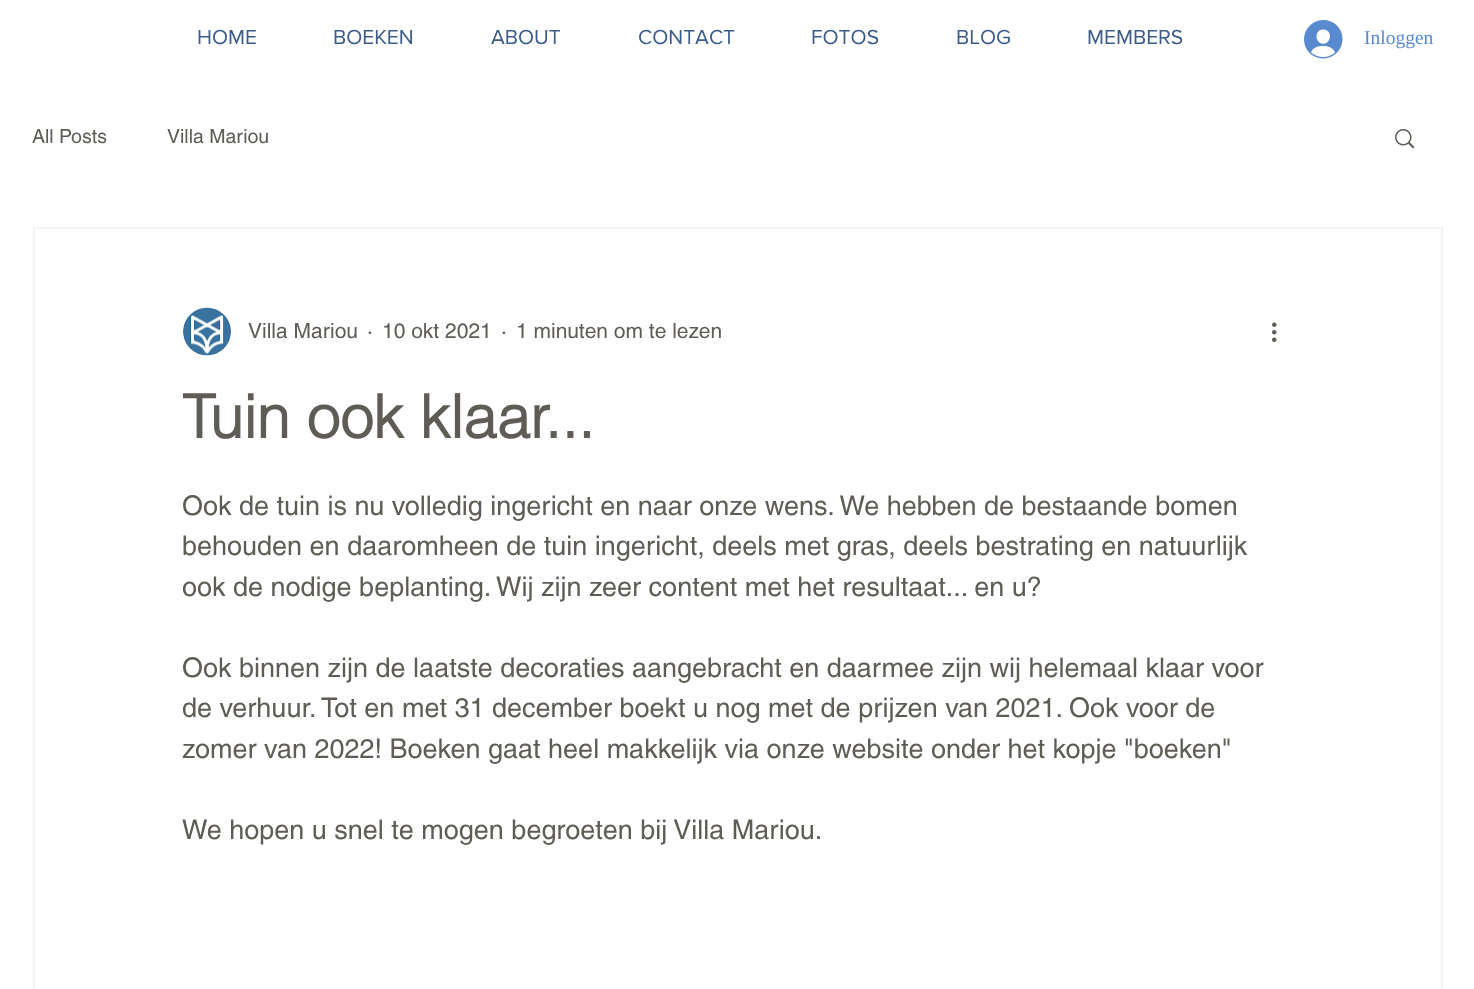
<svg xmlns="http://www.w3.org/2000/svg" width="1474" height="989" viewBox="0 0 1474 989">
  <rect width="100%" height="100%" fill="rgb(255,255,255)"/>
  <g font-family="'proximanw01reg'" font-size="21" fill="rgb(59,92,138)">
    <text x="197" y="44">HOME</text>
    <text x="333" y="44">BOEKEN</text>
    <text x="491" y="44">ABOUT</text>
    <text x="638" y="44">CONTACT</text>
    <text x="811" y="44">FOTOS</text>
    <text x="956" y="44">BLOG</text>
    <text x="1087" y="44">MEMBERS</text>
  </g>
  <image x="1304" y="20" width="39" height="39" href="pic1.png"/>
  <text x="1364" y="44" font-family="Liberation Serif" font-size="19.5" fill="rgb(89,138,207)">Inloggen</text>
  <g font-family="helvetica" font-size="19.5" fill="rgb(95,92,86)">
    <text x="32" y="143">All Posts</text>
    <text x="167" y="143">Villa Mariou</text>
  </g>
  <image x="1395" y="129" width="20" height="20" href="pic2.png"/>
  <rect x="34" y="228" width="1408" height="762" fill="none" stroke="rgb(244,243,242)" stroke-width="2"/>
  <image x="183" y="307" width="48" height="49" href="pic3.png"/>
  <g font-family="helvetica" font-size="21" fill="rgb(95,92,86)">
    <text x="248" y="338">Villa Mariou</text>
    <text x="367" y="338">·</text>
    <text x="382" y="338">10 okt 2021</text>
    <text x="501" y="338">·</text>
    <text x="516" y="338">1 minuten om te lezen</text>
  </g>
  <image x="1272" y="322" width="5" height="20" href="pic4.png"/>
  <text x="182" y="438" font-family="helvetica" font-size="60" font-weight="bold" fill="rgb(95,92,86)">Tuin ook klaar...</text>
  <g font-family="helvetica" font-size="27" fill="rgb(95,92,86)">
    <text>
      <tspan x="182" y="515">Ook de tuin is nu volledig ingericht en naar onze wens. We hebben de bestaande bomen</tspan>
      <tspan x="182" y="555">behouden en daaromheen de tuin ingericht, deels met gras, deels bestrating en natuurlijk</tspan>
      <tspan x="182" y="596">ook de nodige beplanting. Wij zijn zeer content met het resultaat... en u?</tspan>
    </text>
    <text>
      <tspan x="182" y="677">Ook binnen zijn de laatste decoraties aangebracht en daarmee zijn wij helemaal klaar voor</tspan>
      <tspan x="182" y="717">de verhuur. Tot en met 31 december boekt u nog met de prijzen van 2021. Ook voor de</tspan>
      <tspan x="182" y="758">zomer van 2022! Boeken gaat heel makkelijk via onze website onder het kopje "boeken"</tspan>
    </text>
    <text x="182" y="839">We hopen u snel te mogen begroeten bij Villa Mariou.</text>
  </g>
</svg>
